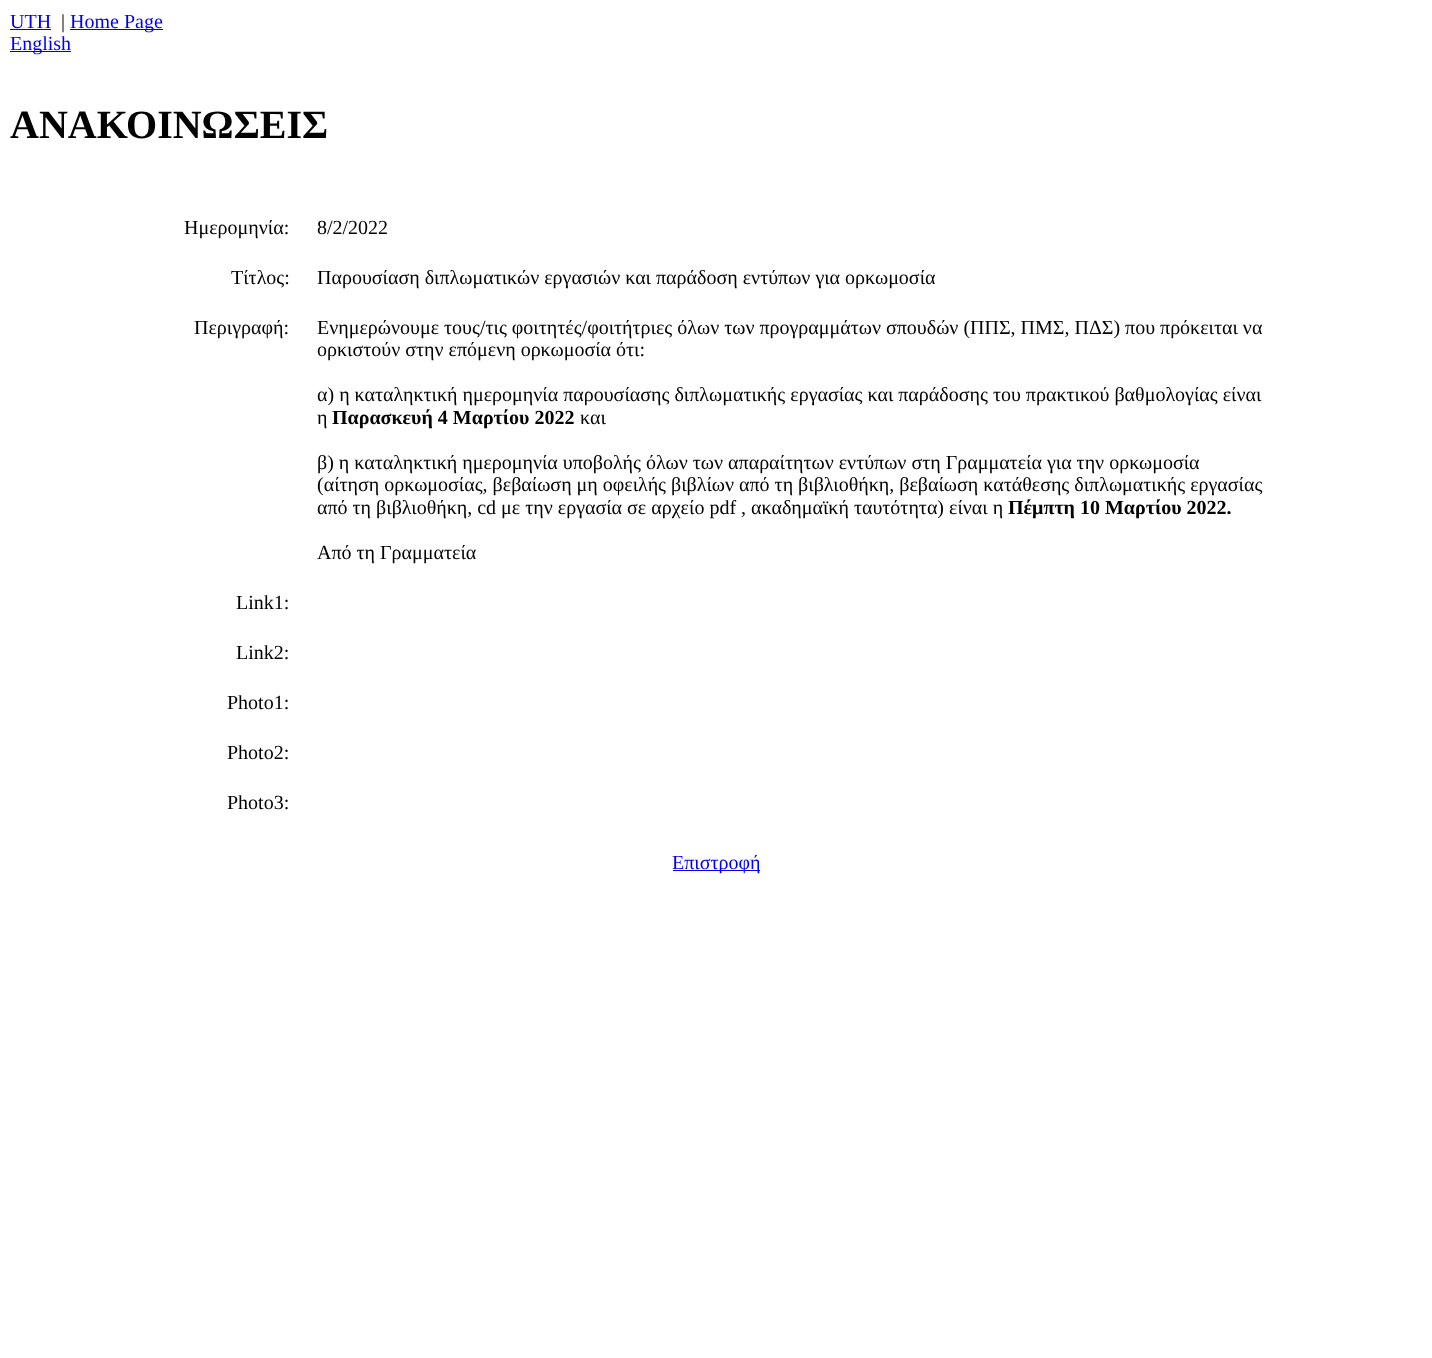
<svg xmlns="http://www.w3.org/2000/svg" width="1432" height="1358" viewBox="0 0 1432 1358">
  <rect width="100%" height="100%" fill="rgb(255,255,255)"/>
  <text x="10" y="28" font-family="Liberation Serif" font-size="20" fill="rgb(0,0,238)">UTH</text>
  <rect x="10" y="29" width="41" height="1" fill="rgb(0,0,238)"/>
  <text x="61" y="28" font-family="Liberation Serif" font-size="20" fill="rgb(0,0,0)">|</text>
  <rect x="70" y="29" width="93" height="1" fill="rgb(0,0,238)"/>
  <text x="70" y="28" font-family="Liberation Serif" font-size="20" fill="rgb(0,0,238)">Home Page</text>
  <rect x="10" y="51" width="61" height="1" fill="rgb(0,0,238)"/>
  <text x="10" y="50" font-family="Liberation Serif" font-size="20" fill="rgb(0,0,238)">English</text>
  <text x="10" y="138" font-family="Liberation Serif" font-size="40" font-weight="bold" fill="rgb(0,0,0)">ΑΝΑΚΟΙΝΩΣΕΙΣ</text>
  <g font-family="Liberation Serif" font-size="20" fill="rgb(0,0,0)">
    <text x="184" y="234">Ημερομηνία:</text>
    <text x="317" y="234">8/2/2022</text>
    <text x="231" y="284">Τίτλος:</text>
    <text x="317" y="284">Παρουσίαση διπλωματικών εργασιών και παράδοση εντύπων για ορκωμοσία</text>
    <text x="194" y="334">Περιγραφή:</text>
    <text>
      <tspan x="317" y="334">Ενημερώνουμε τους/τις φοιτητές/φοιτήτριες όλων των προγραμμάτων σπουδών (ΠΠΣ, ΠΜΣ, ΠΔΣ) που πρόκειται να</tspan>
      <tspan x="317" y="356">ορκιστούν στην επόμενη ορκωμοσία ότι:</tspan>
    </text>
    <text>
      <tspan x="317" y="401">α) η καταληκτική ημερομηνία παρουσίασης διπλωματικής εργασίας και παράδοσης του πρακτικού βαθμολογίας είναι</tspan>
      <tspan x="317" y="424">η</tspan>
    </text>
  </g>
  <text x="332" y="424" font-family="Liberation Serif" font-size="20" font-weight="bold" fill="rgb(0,0,0)">Παρασκευή 4 Μαρτίου 2022</text>
  <g font-family="Liberation Serif" font-size="20" fill="rgb(0,0,0)">
    <text x="580" y="424">και</text>
    <text>
      <tspan x="317" y="469">β) η καταληκτική ημερομηνία υποβολής όλων των απαραίτητων εντύπων στη Γραμματεία για την ορκωμοσία</tspan>
      <tspan x="317" y="491">(αίτηση ορκωμοσίας, βεβαίωση μη οφειλής βιβλίων από τη βιβλιοθήκη, βεβαίωση κατάθεσης διπλωματικής εργασίας</tspan>
      <tspan x="317" y="514">από τη βιβλιοθήκη, cd με την εργασία σε αρχείο pdf , ακαδημαϊκή ταυτότητα) είναι η</tspan>
    </text>
  </g>
  <text x="1008" y="514" font-family="Liberation Serif" font-size="20" font-weight="bold" fill="rgb(0,0,0)">Πέμπτη 10 Μαρτίου 2022.</text>
  <g font-family="Liberation Serif" font-size="20" fill="rgb(0,0,0)">
    <text x="317" y="559">Από τη Γραμματεία</text>
    <text x="236" y="609">Link1:</text>
    <text x="236" y="659">Link2:</text>
    <text x="227" y="709">Photo1:</text>
    <text x="227" y="759">Photo2:</text>
    <text x="227" y="809">Photo3:</text>
  </g>
  <rect x="673" y="870" width="87" height="1" fill="rgb(0,0,238)"/>
  <text x="672" y="869" font-family="Liberation Serif" font-size="20" fill="rgb(0,0,238)">Επιστροφή</text>
</svg>
